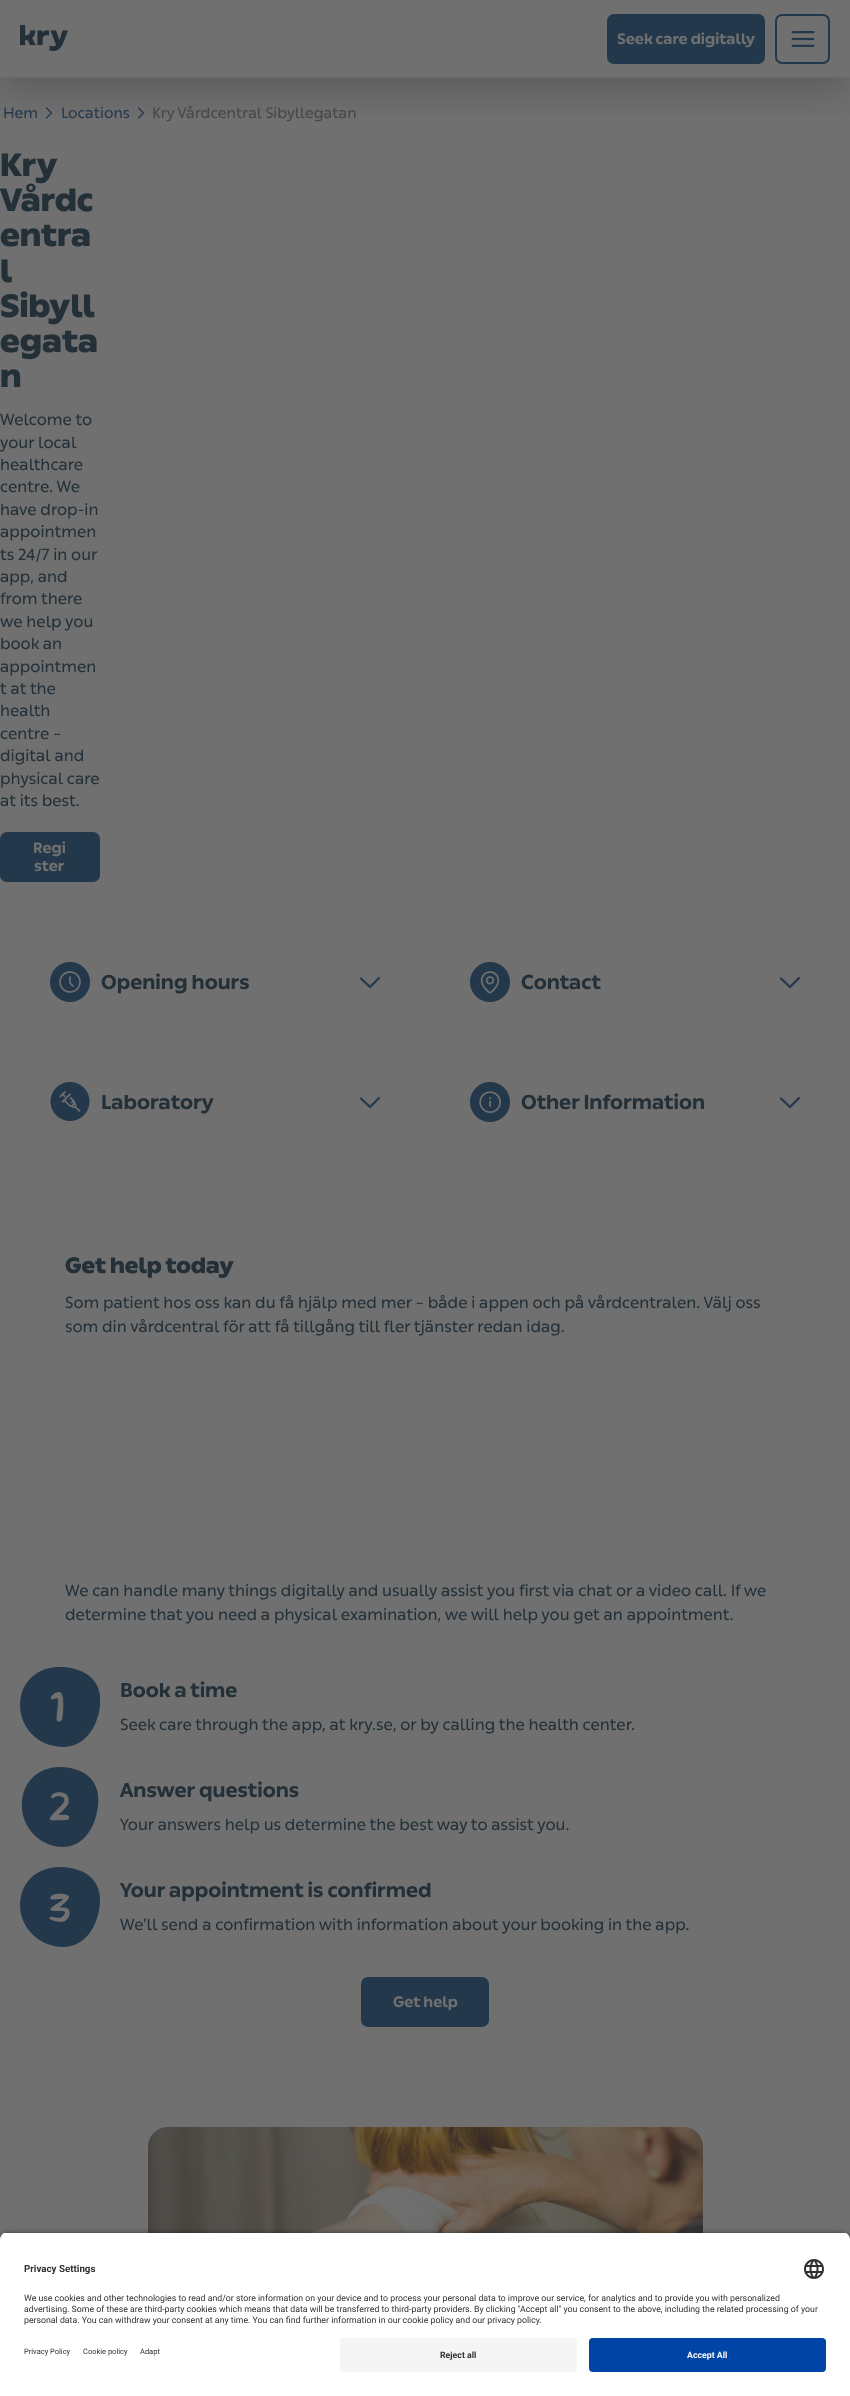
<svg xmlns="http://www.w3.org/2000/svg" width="850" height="2396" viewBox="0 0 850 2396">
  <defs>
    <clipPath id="clip1"><rect x="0" y="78" width="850" height="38"/></clipPath>
    <clipPath id="clip2"><rect x="20" y="1667" width="80" height="80"/></clipPath>
    <clipPath id="clip3"><path d="M8 2232H842C846.5 2232 850 2235.5 850 2240V2330H0V2240C0 2235.5 3.5 2232 8 2232Z"/></clipPath>
  </defs>
  <rect width="100%" height="100%" fill="rgb(112,112,112)"/>
  <path d="M46.5 108L51.5 113L46.5 118" fill="none" stroke="rgb(36,56,75)" stroke-width="1.2" stroke-linecap="round" stroke-linejoin="round"/>
  <path d="M138.5 108L143.5 113L138.5 118" fill="none" stroke="rgb(36,56,75)" stroke-width="1.2" stroke-linecap="round" stroke-linejoin="round"/>
  <g clip-path="url(#clip1)">
    <rect x="0" y="14" width="850" height="78" fill="rgba(36,36,36,0.25)" filter="blur(17px)"/>
  </g>
  <rect x="0" y="77" width="850" height="1" fill="rgb(105,105,105)"/>
  <image x="20" y="25" width="48" height="26" href="pic1.png"/>
  <rect x="607" y="14" width="158" height="50" rx="7" fill="rgb(36,56,75)"/>
  <text x="617" y="44" font-family="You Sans" font-size="15" font-weight="bold" fill="rgb(112,112,112)">Seek care digitally</text>
  <rect x="776" y="15" width="53" height="48" rx="6" fill="none" stroke="rgb(36,56,75)" stroke-width="2"/>
  <image x="791" y="31" width="24" height="16" href="pic2.png"/>
  <g font-family="You Sans" font-size="15" fill="rgb(36,56,75)">
    <text x="3" y="118">Hem</text>
    <text x="61" y="118">Locations</text>
  </g>
  <text x="152" y="118" font-family="You Sans" font-size="15" fill="rgb(69,71,73)">Kry Vårdcentral Sibyllegatan</text>
  <g font-family="You Sans" font-size="32" font-weight="900" fill="rgb(36,48,56)">
    <text>
      <tspan x="0" y="176">Kry</tspan>
      <tspan x="0" y="211">Vårdc</tspan>
      <tspan x="0" y="246">entra</tspan>
      <tspan x="0" y="282">l</tspan>
      <tspan x="0" y="317">Sibyll</tspan>
      <tspan x="0" y="352">egata</tspan>
      <tspan x="0" y="387">n</tspan>
    </text>
  </g>
  <g font-family="You Sans" font-size="16" fill="rgb(36,48,56)">
    <text>
      <tspan x="0" y="425">Welcome to</tspan>
      <tspan x="0" y="448">your local</tspan>
      <tspan x="0" y="470">healthcare</tspan>
      <tspan x="0" y="492">centre. We</tspan>
      <tspan x="0" y="515">have drop-in</tspan>
      <tspan x="0" y="537">appointmen</tspan>
      <tspan x="0" y="560">ts 24/7 in our</tspan>
      <tspan x="0" y="582">app, and</tspan>
      <tspan x="0" y="604">from there</tspan>
      <tspan x="0" y="627">we help you</tspan>
      <tspan x="0" y="649">book an</tspan>
      <tspan x="0" y="672">appointmen</tspan>
      <tspan x="0" y="694">t at the</tspan>
      <tspan x="0" y="716">health</tspan>
      <tspan x="0" y="739">centre –</tspan>
      <tspan x="0" y="761">digital and</tspan>
      <tspan x="0" y="784">physical care</tspan>
      <tspan x="0" y="806">at its best.</tspan>
    </text>
  </g>
  <rect x="0" y="832" width="100" height="50" rx="7" fill="rgb(36,56,75)"/>
  <g font-family="You Sans" font-size="15" font-weight="bold" fill="rgb(112,112,112)">
    <text x="33" y="853">Regi</text>
    <text x="34" y="871">ster</text>
  </g>
  <image x="50" y="962" width="40" height="40" href="pic3.png"/>
  <text x="101" y="989" font-family="You Sans" font-size="20" font-weight="bold" fill="rgb(36,48,56)">Opening hours</text>
  <path d="M379 978L370 987L361 978.5" fill="none" stroke="rgb(36,56,75)" stroke-width="2.2" stroke-linecap="round" stroke-linejoin="round"/>
  <image x="470" y="962" width="40" height="40" href="pic4.png"/>
  <text x="521" y="989" font-family="You Sans" font-size="20" font-weight="bold" fill="rgb(36,48,56)">Contact</text>
  <path d="M799 978L790 987L781 978.5" fill="none" stroke="rgb(36,56,75)" stroke-width="2.2" stroke-linecap="round" stroke-linejoin="round"/>
  <image x="50" y="1082" width="40" height="39" href="pic5.png"/>
  <text x="101" y="1109" font-family="You Sans" font-size="20" font-weight="bold" fill="rgb(36,48,56)">Laboratory</text>
  <path d="M379 1098L370 1107L361 1098.5" fill="none" stroke="rgb(36,56,75)" stroke-width="2.2" stroke-linecap="round" stroke-linejoin="round"/>
  <image x="470" y="1082" width="40" height="40" href="pic6.png"/>
  <text x="521" y="1109" font-family="You Sans" font-size="20" font-weight="bold" fill="rgb(36,48,56)">Other Information</text>
  <path d="M799 1098L790 1107L781 1098.5" fill="none" stroke="rgb(36,56,75)" stroke-width="2.2" stroke-linecap="round" stroke-linejoin="round"/>
  <text x="65" y="1273" font-family="You Sans" font-size="22" font-weight="900" fill="rgb(36,48,56)">Get help today</text>
  <g font-family="You Sans" font-size="16" fill="rgb(36,48,56)">
    <text>
      <tspan x="65" y="1308">Som patient hos oss kan du få hjälp med mer – både i appen och på vårdcentralen. Välj oss</tspan>
      <tspan x="65" y="1332">som din vårdcentral för att få tillgång till fler tjänster redan idag.</tspan>
    </text>
    <text>
      <tspan x="65" y="1596">We can handle many things digitally and usually assist you first via chat or a video call. If we</tspan>
      <tspan x="65" y="1620">determine that you need a physical examination, we will help you get an appointment.</tspan>
    </text>
  </g>
  <g clip-path="url(#clip2)">
    <path d="M99 1712C94 1735 78 1751 55 1746C31 1742 16 1719 21 1696C26 1674 48 1663 71 1668C95 1673 104 1689 99 1712Z" fill="rgb(36,56,75)"/>
  </g>
  <path d="M51 1698.5C50 1695 58 1690.5 60.5 1692.5C65 1696 63 1713.5 62.5 1717.5C62.5 1722 57 1723.5 56.5 1719C56.5 1716.5 59 1699.5 57.5 1698.5C56 1697.5 52 1701 51 1698.5Z" fill="rgb(112,112,112)"/>
  <text x="120" y="1697" font-family="You Sans" font-size="20" font-weight="bold" fill="rgb(36,48,56)">Book a time</text>
  <text x="120" y="1730" font-family="You Sans" font-size="16" fill="rgb(36,48,56)">Seek care through the app, at kry.se, or by calling the health center.</text>
  <image x="21" y="1767" width="78" height="80" href="pic7.png"/>
  <text x="120" y="1797" font-family="You Sans" font-size="20" font-weight="bold" fill="rgb(36,48,56)">Answer questions</text>
  <text x="120" y="1830" font-family="You Sans" font-size="16" fill="rgb(36,48,56)">Your answers help us determine the best way to assist you.</text>
  <image x="20" y="1867" width="80" height="80" href="pic8.png"/>
  <text x="120" y="1897" font-family="You Sans" font-size="20" font-weight="bold" fill="rgb(36,48,56)">Your appointment is confirmed</text>
  <text x="120" y="1930" font-family="You Sans" font-size="16" fill="rgb(36,48,56)">We’ll send a confirmation with information about your booking in the app.</text>
  <rect x="361" y="1977" width="128" height="50" rx="7" fill="rgb(36,56,75)"/>
  <text x="393" y="2007" font-family="You Sans" font-size="15" font-weight="bold" fill="rgb(112,112,112)">Get help</text>
  <image x="148" y="2127" width="555" height="106" href="pic9.png"/>
  <rect x="0" y="2235" width="850" height="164" rx="8" fill="rgba(0,0,0,0.8)" filter="blur(3.5px)"/>
  <g clip-path="url(#clip3)">
    <rect x="0" y="2233" width="850" height="97" fill="rgb(255,255,255)"/>
  </g>
  <text x="24" y="2272" font-family="Roboto" font-size="9.75" font-weight="bold" fill="rgb(48,48,48)">Privacy Settings</text>
  <image x="804" y="2259" width="20" height="20" href="pic10.png"/>
  <g font-family="Roboto" font-size="8.75" fill="rgb(48,48,48)">
    <text>
      <tspan x="24" y="2301">We use cookies and other technologies to read and/or store information on your device and to process your personal data to improve our service, for analytics and to provide you with personalized</tspan>
      <tspan x="24" y="2312">advertising. Some of these are third-party cookies which means that data will be transferred to third-party providers. By clicking "Accept all" you consent to the above, including the related processing of your</tspan>
      <tspan x="24" y="2323">personal data. You can withdraw your consent at any time. You can find further information in our cookie policy and our privacy policy.</tspan>
    </text>
  </g>
  <rect x="0" y="2330" width="850" height="66" fill="rgb(255,255,255)"/>
  <g font-family="Roboto" font-size="7.5" fill="rgb(48,48,48)">
    <text x="24" y="2354">Privacy Policy</text>
    <text x="83" y="2354">Cookie policy</text>
    <text x="140" y="2354">Adapt</text>
  </g>
  <rect x="340" y="2338" width="237" height="34" rx="4" fill="rgb(245,245,245)"/>
  <text x="440" y="2358" font-family="Roboto" font-size="8.75" font-weight="bold" fill="rgb(48,48,48)">Reject all</text>
  <rect x="589" y="2338" width="237" height="34" rx="4" fill="rgb(0,69,165)"/>
  <text x="687" y="2358" font-family="Roboto" font-size="8.75" font-weight="bold" fill="rgb(250,250,250)">Accept All</text>
</svg>
